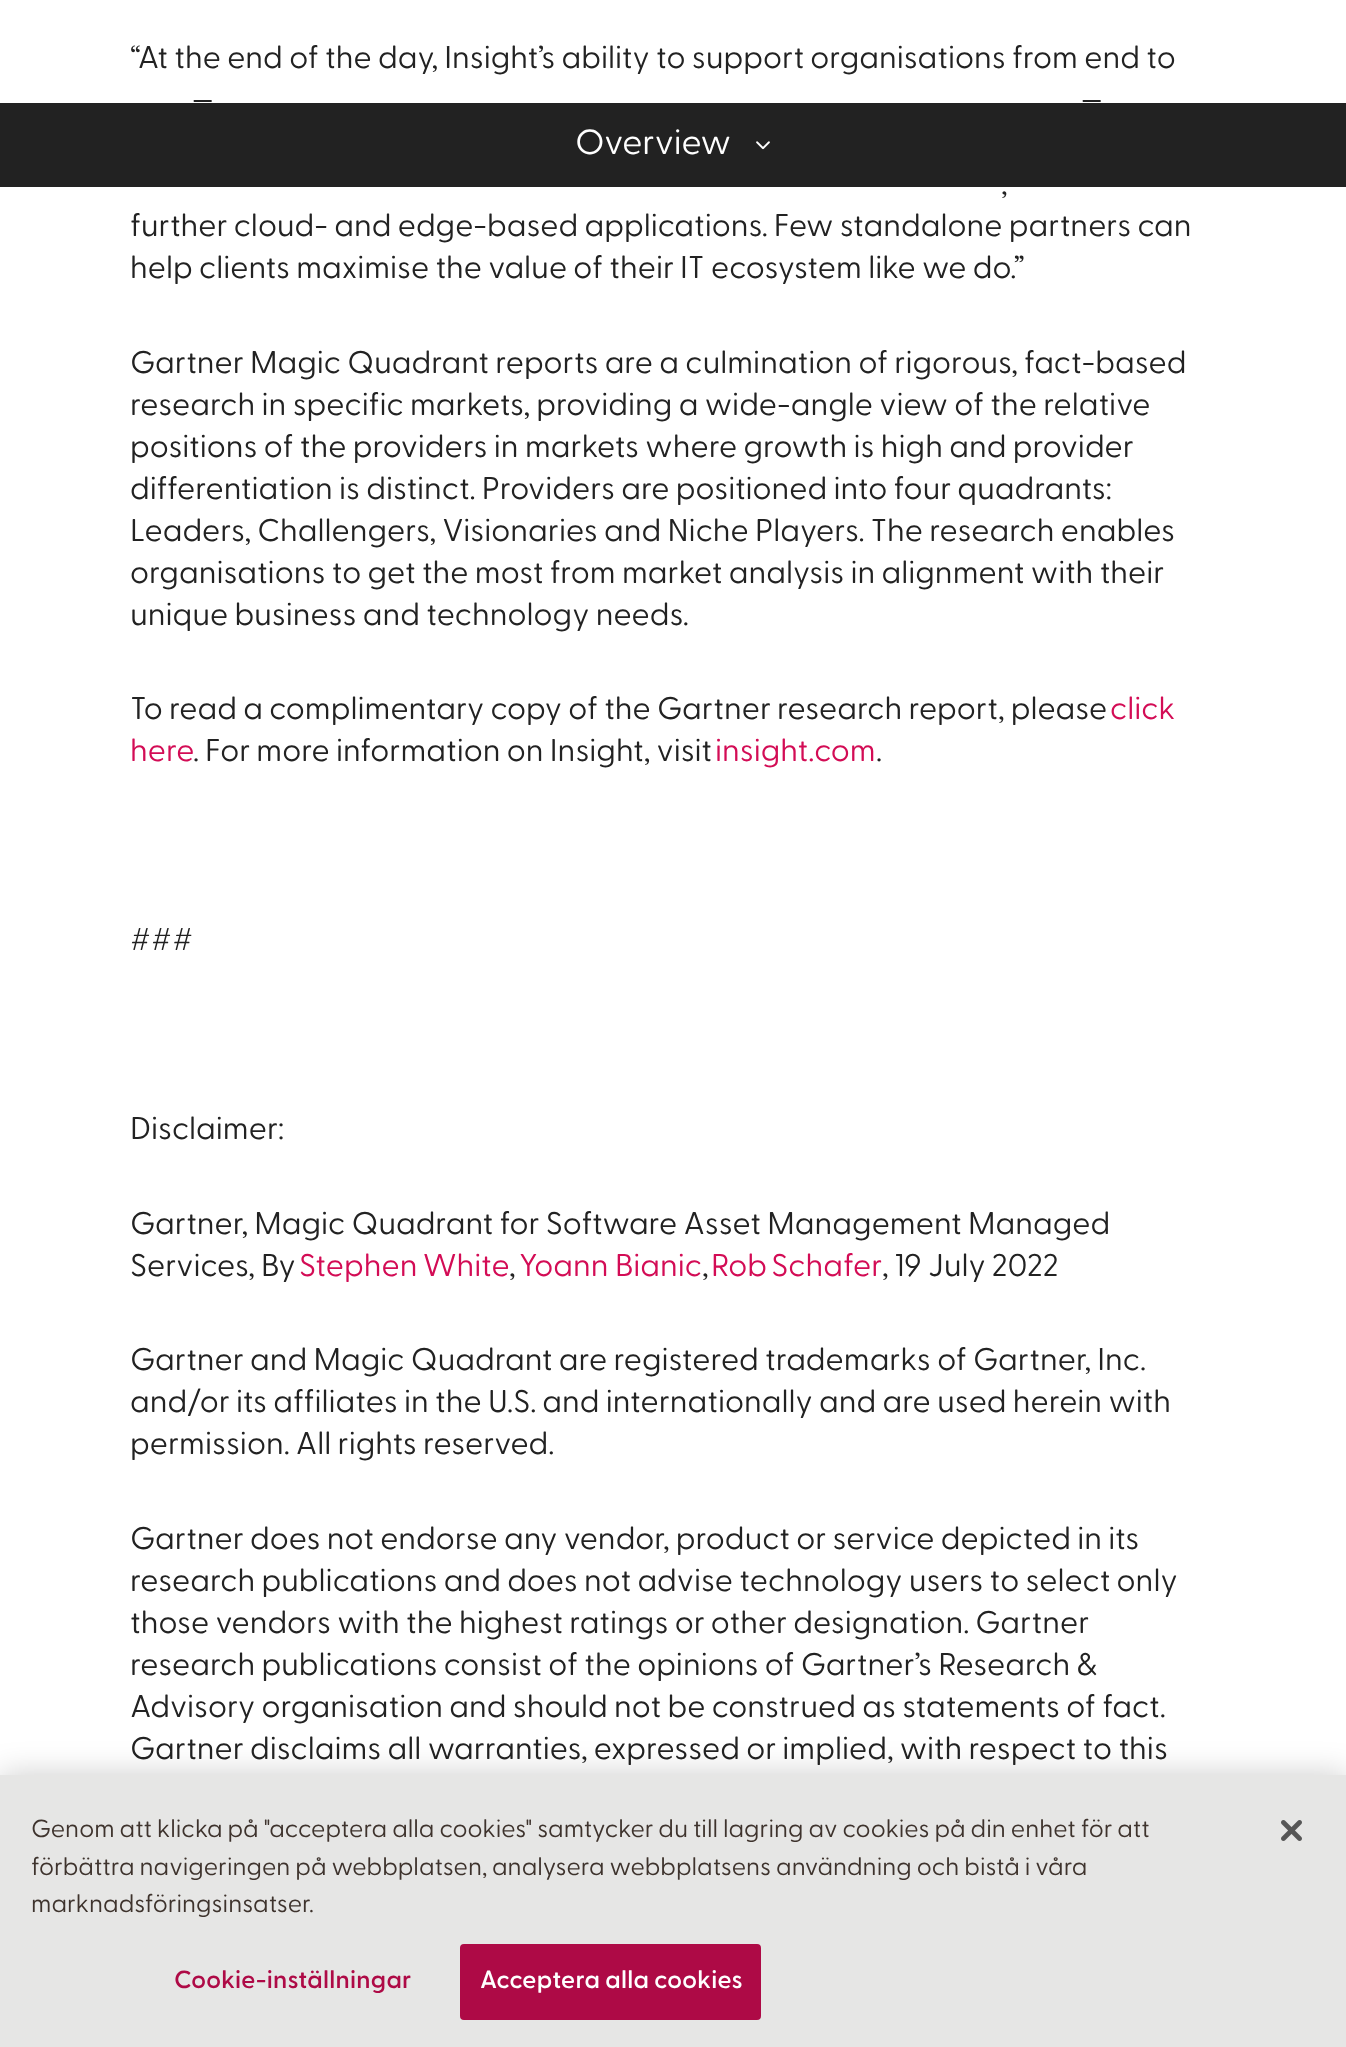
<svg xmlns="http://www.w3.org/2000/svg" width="1346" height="2047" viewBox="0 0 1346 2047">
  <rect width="100%" height="100%" fill="rgb(255,255,255)"/>
  <g font-family="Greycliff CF" font-size="31.5" fill="rgb(34,34,34)">
    <text x="130" y="68">“At the end of the day, Insight’s ability to support organisations from end to</text>
    <text x="192" y="110">—</text>
    <text x="1081" y="110">—</text>
    <text x="1001" y="194">,</text>
    <text>
      <tspan x="130" y="236">further cloud- and edge-based applications. Few standalone partners can</tspan>
      <tspan x="130" y="278">help clients maximise the value of their IT ecosystem like we do.”</tspan>
    </text>
    <text>
      <tspan x="130" y="373">Gartner Magic Quadrant reports are a culmination of rigorous, fact-based</tspan>
      <tspan x="130" y="415">research in specific markets, providing a wide-angle view of the relative</tspan>
      <tspan x="130" y="457">positions of the providers in markets where growth is high and provider</tspan>
      <tspan x="130" y="499">differentiation is distinct. Providers are positioned into four quadrants:</tspan>
      <tspan x="130" y="541">Leaders, Challengers, Visionaries and Niche Players. The research enables</tspan>
      <tspan x="130" y="583">organisations to get the most from market analysis in alignment with their</tspan>
      <tspan x="130" y="625">unique business and technology needs.</tspan>
    </text>
    <text x="130" y="719">To read a complimentary copy of the Gartner research report, please</text>
  </g>
  <g font-family="Greycliff CF" font-size="31.5" fill="rgb(211,12,85)">
    <text x="1110" y="719">click</text>
    <text x="130" y="761">here</text>
  </g>
  <text x="193" y="761" font-family="Greycliff CF" font-size="31.5" fill="rgb(34,34,34)">. For more information on Insight, visit</text>
  <text x="715" y="761" font-family="Greycliff CF" font-size="31.5" fill="rgb(211,12,85)">insight.com</text>
  <g font-family="Greycliff CF" font-size="31.5" fill="rgb(34,34,34)">
    <text x="876" y="761">.</text>
    <text x="130" y="950">###</text>
    <text x="130" y="1139">Disclaimer:</text>
    <text>
      <tspan x="130" y="1234">Gartner, Magic Quadrant for Software Asset Management Managed</tspan>
      <tspan x="130" y="1276">Services, By</tspan>
    </text>
  </g>
  <text x="299" y="1276" word-spacing="-1" font-family="Greycliff CF" font-size="31.5" fill="rgb(211,12,85)">Stephen White</text>
  <text x="509" y="1276" font-family="Greycliff CF" font-size="31.5" fill="rgb(34,34,34)">,</text>
  <text x="519" y="1276" font-family="Greycliff CF" font-size="31.5" fill="rgb(211,12,85)">Yoann Bianic</text>
  <text x="702" y="1276" font-family="Greycliff CF" font-size="31.5" fill="rgb(34,34,34)">,</text>
  <text x="711" y="1276" word-spacing="-2" font-family="Greycliff CF" font-size="31.5" fill="rgb(211,12,85)">Rob Schafer</text>
  <g font-family="Greycliff CF" font-size="31.5" fill="rgb(34,34,34)">
    <text x="882" y="1276">, 19 July 2022</text>
    <text>
      <tspan x="130" y="1370">Gartner and Magic Quadrant are registered trademarks of Gartner, Inc.</tspan>
      <tspan x="130" y="1412">and/or its affiliates in the U.S. and internationally and are used herein with</tspan>
      <tspan x="130" y="1454">permission. All rights reserved.</tspan>
    </text>
    <text>
      <tspan x="130" y="1549">Gartner does not endorse any vendor, product or service depicted in its</tspan>
      <tspan x="130" y="1591">research publications and does not advise technology users to select only</tspan>
      <tspan x="130" y="1633">those vendors with the highest ratings or other designation. Gartner</tspan>
      <tspan x="130" y="1675">research publications consist of the opinions of Gartner’s Research &amp;</tspan>
      <tspan x="130" y="1717">Advisory organisation and should not be construed as statements of fact.</tspan>
      <tspan x="130" y="1759">Gartner disclaims all warranties, expressed or implied, with respect to this</tspan>
    </text>
  </g>
  <rect x="0" y="103" width="1346" height="84" fill="rgb(34,34,34)"/>
  <text x="575" y="154" font-family="Greycliff CF" font-size="35" fill="rgb(255,255,255)">Overview</text>
  <image x="756" y="141" width="14" height="9" href="pic1.png"/>
  <rect x="0" y="1775" width="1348" height="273" fill="rgba(0,0,0,0.2)" filter="blur(16px)"/>
  <rect x="0" y="1775" width="1346" height="272" fill="rgb(230,230,229)"/>
  <g font-family="Greycliff CF" font-size="24.9" fill="rgb(62,51,45)">
    <text>
      <tspan x="31" y="1837">Genom att klicka på "acceptera alla cookies" samtycker du till lagring av cookies på din enhet för att</tspan>
      <tspan x="31" y="1875">förbättra navigeringen på webbplatsen, analysera webbplatsens användning och bistå i våra</tspan>
      <tspan x="31" y="1912">marknadsföringsinsatser.</tspan>
    </text>
  </g>
  <text x="174" y="1988" font-family="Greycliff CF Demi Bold" font-size="24.9" font-weight="600" letter-spacing="0.25" fill="rgb(174,10,70)">Cookie-inställningar</text>
  <rect x="461" y="1945" width="299" height="74" rx="3" fill="rgb(174,10,70)" stroke="rgb(174,10,70)" stroke-width="2"/>
  <text x="480" y="1988" font-family="Greycliff CF Demi Bold" font-size="24.9" font-weight="600" letter-spacing="0.25" fill="rgb(255,255,255)">Acceptera alla cookies</text>
  <image x="1281" y="1820" width="21" height="21" href="pic2.png"/>
</svg>
